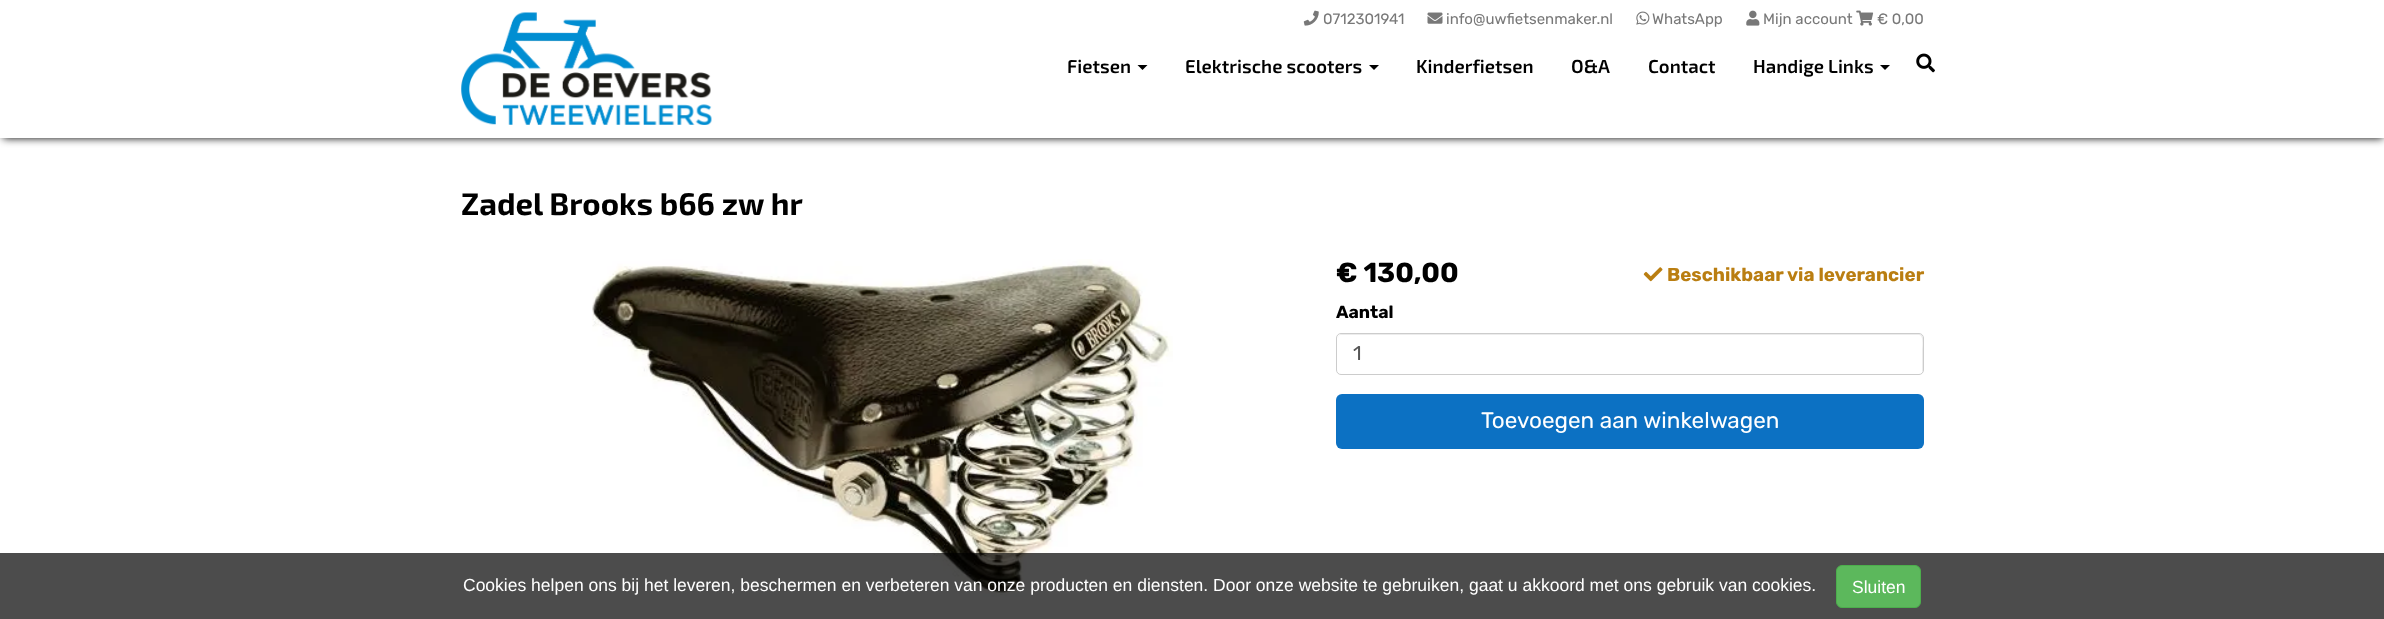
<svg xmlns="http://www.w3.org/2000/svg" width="2384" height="619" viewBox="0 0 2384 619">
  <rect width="100%" height="100%" fill="rgb(255,255,255)"/>
  <rect x="3" y="5" width="2380" height="133" fill="rgb(0,0,0)" filter="blur(4px)"/>
  <rect x="0" y="0" width="2384" height="138" fill="rgb(255,255,255)"/>
  <image x="461" y="12" width="251" height="113" href="pic1.png"/>
  <image x="1303" y="10" width="16" height="16" href="pic2.png"/>
  <text x="1323" y="24" font-family="Rubik" font-size="15" fill="rgb(120,120,120)">0712301941</text>
  <image x="1427" y="12" width="16" height="12" href="pic3.png"/>
  <text x="1446" y="24" font-family="Rubik" font-size="15" fill="rgb(120,120,120)">info@uwfietsenmaker.nl</text>
  <image x="1636" y="11" width="14" height="14" href="pic4.png"/>
  <text x="1652" y="24" font-family="Rubik" font-size="15" fill="rgb(120,120,120)">WhatsApp</text>
  <image x="1746" y="10" width="14" height="16" href="pic5.png"/>
  <text x="1763" y="24" font-family="Rubik" font-size="15" fill="rgb(120,120,120)">Mijn account</text>
  <image x="1856" y="10" width="18" height="16" href="pic6.png"/>
  <text x="1877" y="24" font-family="Rubik" font-size="15" fill="rgb(120,120,120)">€ 0,00</text>
  <text x="1067" y="73" font-family="'Exo 2'" font-size="18.75" font-weight="600" fill="rgb(0,0,0)">Fietsen</text>
  <path d="M1137.5 65H1147.5L1142.5 70Z" fill="rgb(0,0,0)"/>
  <text x="1185" y="73" font-family="'Exo 2'" font-size="18.75" font-weight="600" fill="rgb(0,0,0)">Elektrische scooters</text>
  <path d="M1369 65H1379L1374 70Z" fill="rgb(0,0,0)"/>
  <g font-family="'Exo 2'" font-size="18.75" font-weight="600" fill="rgb(0,0,0)">
    <text x="1416" y="73">Kinderfietsen</text>
    <text x="1571" y="73">O&amp;A</text>
    <text x="1648" y="73">Contact</text>
    <text x="1753" y="73">Handige Links</text>
  </g>
  <path d="M1880 65H1890L1885 70Z" fill="rgb(0,0,0)"/>
  <image x="1916" y="53" width="19" height="20" href="pic7.png"/>
  <text x="461" y="215" font-family="'Exo 2'" font-size="31.25" font-weight="bold" fill="rgb(0,0,0)">Zadel Brooks b66 zw hr</text>
  <image x="592" y="259" width="581" height="338" href="pic8.png"/>
  <text x="1336" y="282" font-family="Rubik" font-size="27.5" font-weight="bold" fill="rgb(0,0,0)">€ 130,00</text>
  <image x="1643" y="267" width="20" height="15" href="pic9.png"/>
  <text x="1667" y="281" font-family="Rubik" font-size="18.75" font-weight="bold" fill="rgb(186,126,17)">Beschikbaar via leverancier</text>
  <text x="1336" y="318" font-family="Rubik" font-size="17.5" font-weight="bold" fill="rgb(0,0,0)">Aantal</text>
  <path d="M1341 335H1919C1924 335 1922 348 1922 350V373C1922 372 1923 371 1923 370V338C1923 336 1921 334 1919 334H1342C1340 334 1338 336 1338 338V339C1338 337 1339 335 1341 335Z" fill="rgb(236,236,236)"/>
  <rect x="1336.5" y="333.5" width="587" height="41" rx="4.5" fill="none" stroke="rgb(204,204,204)"/>
  <text x="1353" y="360" font-family="Rubik" font-size="20" fill="rgb(85,85,85)">1</text>
  <rect x="1336" y="394" width="588" height="55" rx="6" fill="rgb(12,113,195)"/>
  <text x="1481" y="428" font-family="Rubik" font-size="22.5" fill="rgb(255,255,255)">Toevoegen aan winkelwagen</text>
  <rect x="0" y="553" width="2384" height="66" fill="rgba(0,0,0,0.7)"/>
  <text x="463" y="591" font-family="Liberation Sans" font-size="17.5" fill="rgb(255,255,255)">Cookies helpen ons bij het leveren, beschermen en verbeteren van onze producten en diensten. Door onze website te gebruiken, gaat u akkoord met ons gebruik van cookies.</text>
  <rect x="1836.5" y="565.5" width="84" height="42" rx="5.5" fill="rgb(92,184,92)" stroke="rgb(76,174,76)"/>
  <text x="1852" y="593" font-family="Liberation Sans" font-size="17.5" fill="rgb(255,255,255)">Sluiten</text>
</svg>
